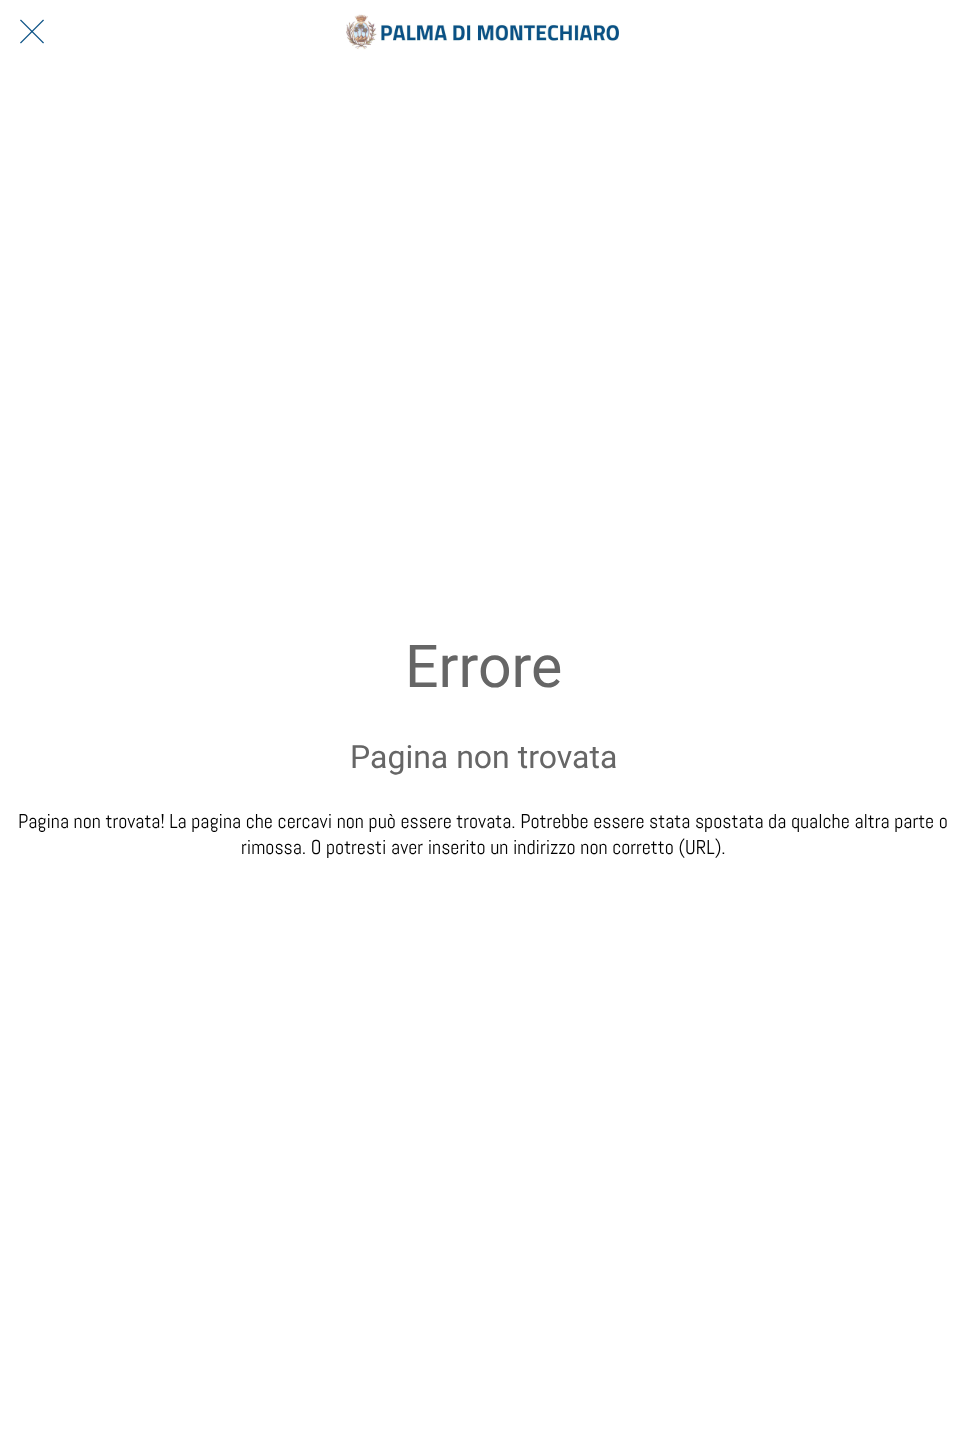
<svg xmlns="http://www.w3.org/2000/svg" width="966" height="1451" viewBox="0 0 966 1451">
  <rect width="100%" height="100%" fill="rgb(255,255,255)"/>
  <image x="20" y="19" width="24" height="25" href="pic1.png"/>
  <image x="346" y="14" width="273" height="36" href="pic2.png"/>
  <text x="405" y="687" font-family="Roboto" font-size="59" fill="rgb(102,102,102)">Errore</text>
  <text x="350" y="768" font-family="Roboto" font-size="32" fill="rgb(102,102,102)">Pagina non trovata</text>
  <g font-family="Abel" font-size="20" fill="rgb(0,0,0)">
    <text x="18" y="828">Pagina non trovata! La pagina che cercavi non può essere trovata. Potrebbe essere stata spostata da qualche altra parte o</text>
    <text x="241" y="854">rimossa. O potresti aver inserito un indirizzo non corretto (URL).</text>
  </g>
</svg>
